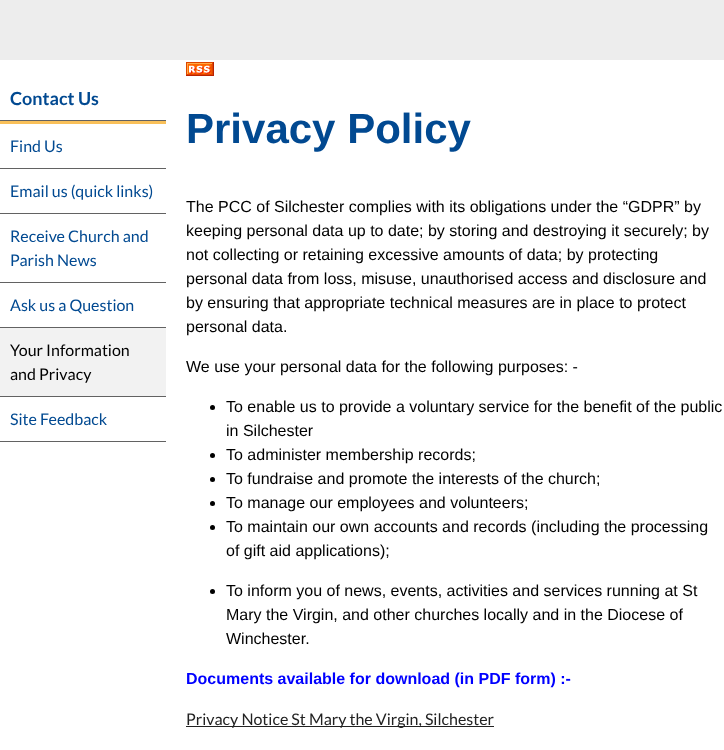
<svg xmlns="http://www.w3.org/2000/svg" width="724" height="750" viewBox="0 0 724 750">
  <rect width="100%" height="100%" fill="rgb(255,255,255)"/>
  <rect x="0" y="0" width="724" height="60" fill="rgb(237,237,237)"/>
  <rect x="0" y="121" width="166" height="3" fill="rgb(249,192,89)"/>
  <rect x="0" y="120" width="166" height="1" fill="rgb(98,98,98)"/>
  <text x="10" y="105" font-family="Lato" font-size="18" font-weight="bold" fill="rgb(1,73,145)">Contact Us</text>
  <rect x="0" y="168" width="166" height="1" fill="rgb(98,98,98)"/>
  <text x="10" y="152" font-family="Lato" font-size="16" fill="rgb(1,73,145)">Find Us</text>
  <rect x="0" y="213" width="166" height="1" fill="rgb(98,98,98)"/>
  <text x="10" y="197" font-family="Lato" font-size="16" fill="rgb(1,73,145)">Email us (quick links)</text>
  <rect x="0" y="282" width="166" height="1" fill="rgb(98,98,98)"/>
  <g font-family="Lato" font-size="16" fill="rgb(1,73,145)">
    <text>
      <tspan x="10" y="242">Receive Church and</tspan>
      <tspan x="10" y="266">Parish News</tspan>
    </text>
  </g>
  <rect x="0" y="327" width="166" height="1" fill="rgb(98,98,98)"/>
  <text x="10" y="311" font-family="Lato" font-size="16" fill="rgb(1,73,145)">Ask us a Question</text>
  <rect x="0" y="328" width="166" height="68" fill="rgb(242,242,242)"/>
  <rect x="0" y="396" width="166" height="1" fill="rgb(98,98,98)"/>
  <g font-family="Lato" font-size="16" fill="rgb(0,0,0)">
    <text>
      <tspan x="10" y="356">Your Information</tspan>
      <tspan x="10" y="380">and Privacy</tspan>
    </text>
  </g>
  <rect x="0" y="441" width="166" height="1" fill="rgb(98,98,98)"/>
  <text x="10" y="425" font-family="Lato" font-size="16" fill="rgb(1,73,145)">Site Feedback</text>
  <image x="186" y="62" width="28" height="14" href="pic1.png"/>
  <text x="186" y="143" font-family="Liberation Sans" font-size="42" font-weight="bold" fill="rgb(1,73,145)">Privacy Policy</text>
  <g font-family="Liberation Sans" font-size="16" fill="rgb(0,0,0)">
    <text>
      <tspan x="186" y="212">The PCC of Silchester complies with its obligations under the “GDPR” by</tspan>
      <tspan x="186" y="236">keeping personal data up to date; by storing and destroying it securely; by</tspan>
      <tspan x="186" y="260">not collecting or retaining excessive amounts of data; by protecting</tspan>
      <tspan x="186" y="284">personal data from loss, misuse, unauthorised access and disclosure and</tspan>
      <tspan x="186" y="308">by ensuring that appropriate technical measures are in place to protect</tspan>
      <tspan x="186" y="332">personal data.</tspan>
    </text>
    <text x="186" y="372">We use your personal data for the following purposes: -</text>
  </g>
  <circle cx="212.5" cy="407.5" r="2.5" fill="rgb(0,0,0)"/>
  <g font-family="Liberation Sans" font-size="16" fill="rgb(0,0,0)">
    <text>
      <tspan x="226" y="412">To enable us to provide a voluntary service for the benefit of the public</tspan>
      <tspan x="226" y="436">in Silchester</tspan>
    </text>
  </g>
  <circle cx="212.5" cy="455.5" r="2.5" fill="rgb(0,0,0)"/>
  <text x="226" y="460" font-family="Liberation Sans" font-size="16" fill="rgb(0,0,0)">To administer membership records;</text>
  <circle cx="212.5" cy="479.5" r="2.5" fill="rgb(0,0,0)"/>
  <text x="226" y="484" font-family="Liberation Sans" font-size="16" fill="rgb(0,0,0)">To fundraise and promote the interests of the church;</text>
  <circle cx="212.5" cy="503.5" r="2.5" fill="rgb(0,0,0)"/>
  <text x="226" y="508" font-family="Liberation Sans" font-size="16" fill="rgb(0,0,0)">To manage our employees and volunteers;</text>
  <circle cx="212.5" cy="527.5" r="2.5" fill="rgb(0,0,0)"/>
  <g font-family="Liberation Sans" font-size="16" fill="rgb(0,0,0)">
    <text>
      <tspan x="226" y="532">To maintain our own accounts and records (including the processing</tspan>
      <tspan x="226" y="556">of gift aid applications);</tspan>
    </text>
  </g>
  <circle cx="212.5" cy="591.5" r="2.5" fill="rgb(0,0,0)"/>
  <g font-family="Liberation Sans" font-size="16" fill="rgb(0,0,0)">
    <text>
      <tspan x="226" y="596">To inform you of news, events, activities and services running at St</tspan>
      <tspan x="226" y="620">Mary the Virgin, and other churches locally and in the Diocese of</tspan>
      <tspan x="226" y="644">Winchester.</tspan>
    </text>
  </g>
  <text x="186" y="684" font-family="Liberation Sans" font-size="16" font-weight="bold" fill="rgb(0,0,255)">Documents available for download (in PDF form) :-</text>
  <rect x="186" y="726" width="308" height="1" fill="rgb(34,34,34)"/>
  <text x="186" y="725" font-family="Lato" font-size="16" fill="rgb(34,34,34)">Privacy Notice St Mary the Virgin, Silchester</text>
</svg>
